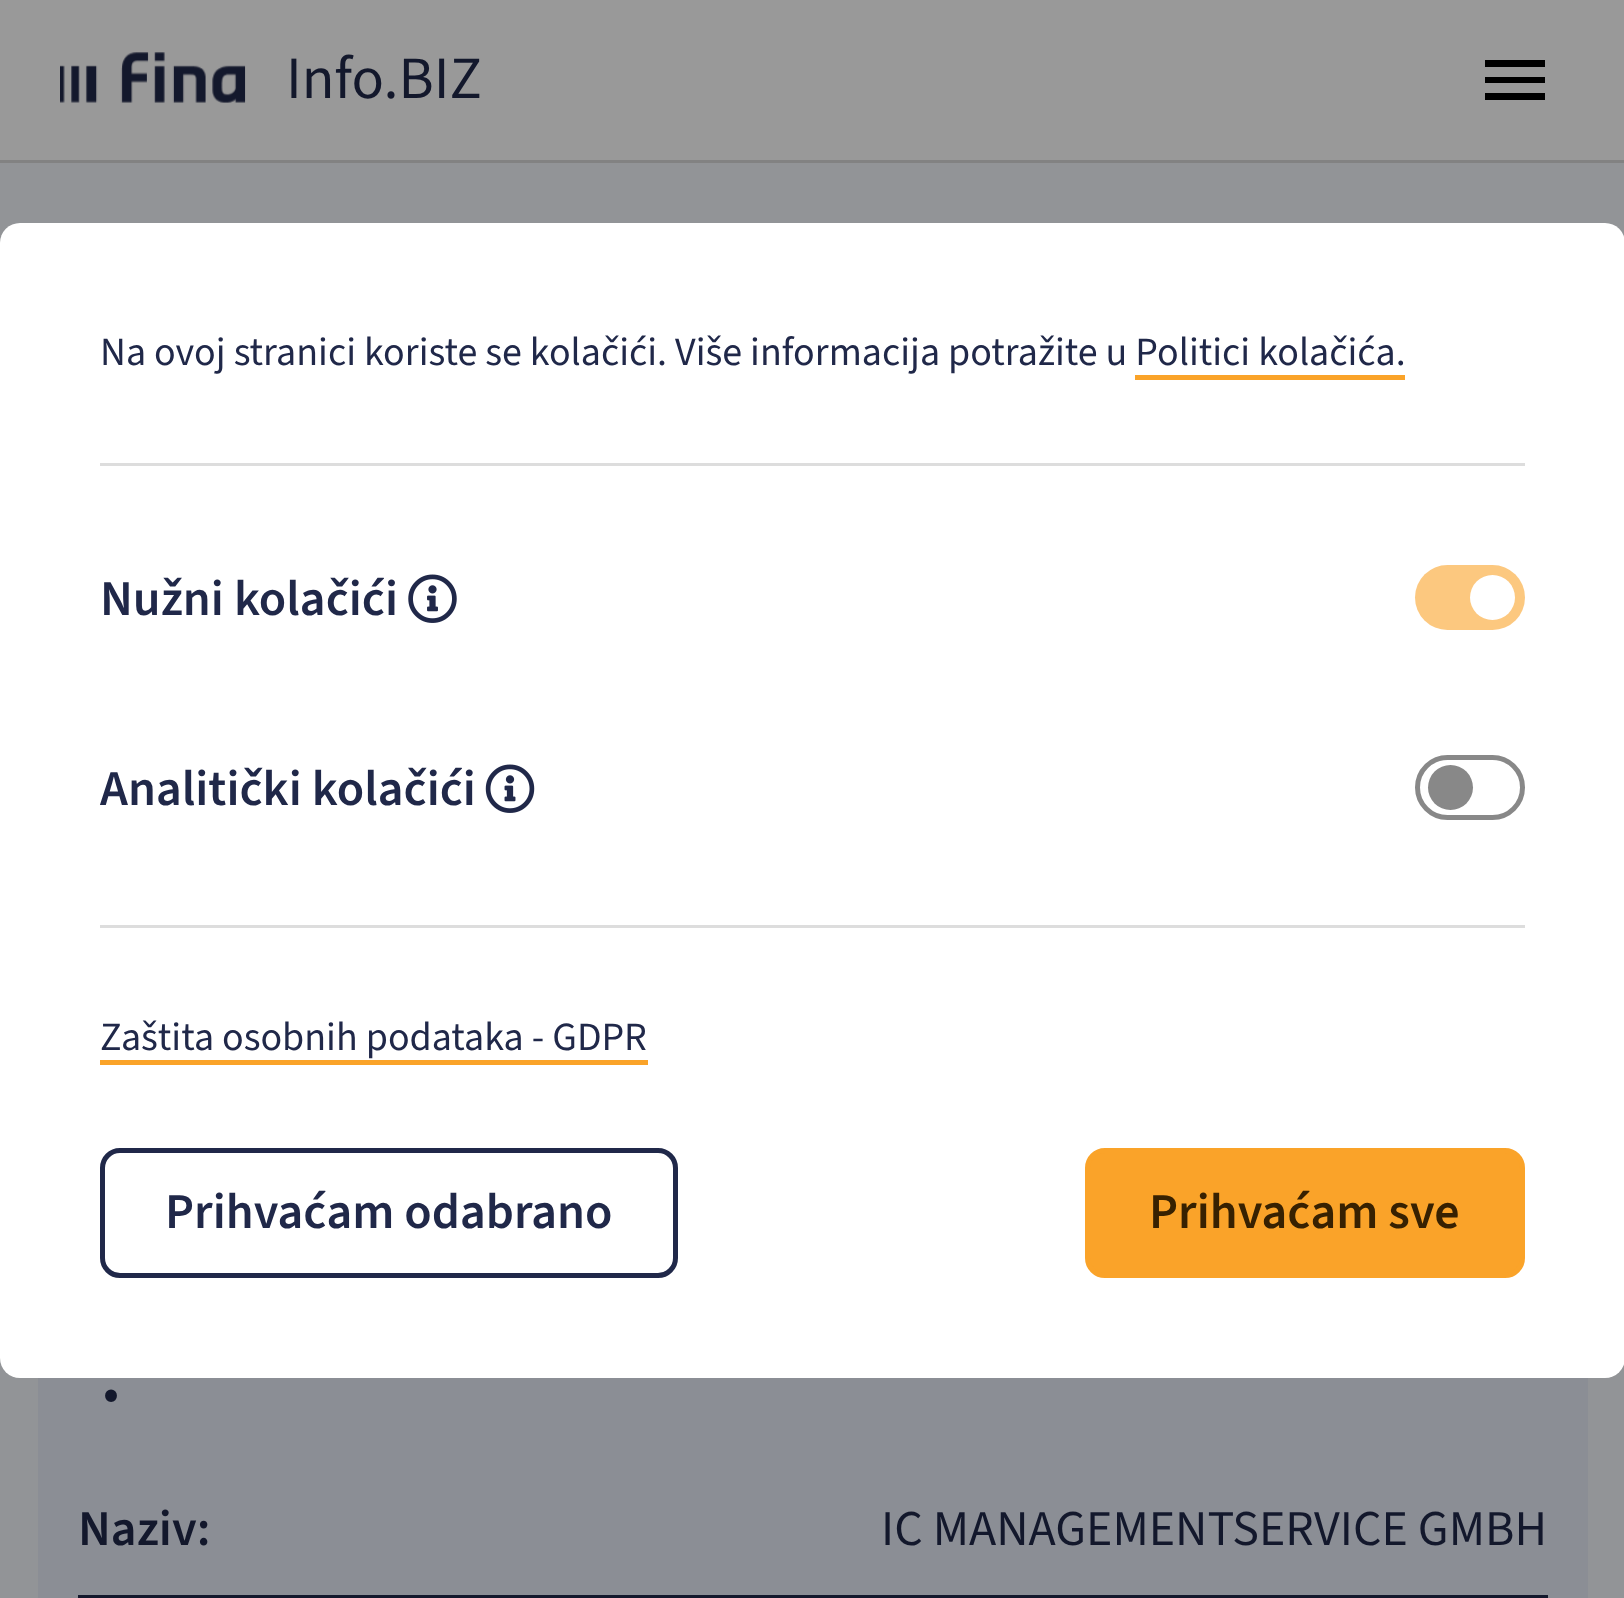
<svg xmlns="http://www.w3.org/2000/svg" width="1624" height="1598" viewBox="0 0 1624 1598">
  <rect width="100%" height="100%" fill="rgb(146,148,151)"/>
  <rect x="0" y="0" width="1624" height="160" fill="rgb(153,153,153)"/>
  <rect x="0" y="160" width="1624" height="3" fill="rgb(130,130,130)"/>
  <image x="60" y="52" width="186" height="51" href="pic1.png"/>
  <text x="286" y="98" font-family="'Source Sans 3'" font-size="60" fill="rgb(19,24,44)">Info.BIZ</text>
  <path d="M1485 100V93H1545V100ZM1485 83V77H1545V83ZM1485 67V60H1545V67Z" fill="rgb(0,0,0)"/>
  <rect x="38" y="1378" width="1550" height="220" fill="rgb(139,142,149)"/>
  <text x="100" y="1401" font-family="'Source Sans 3'" font-size="80" font-weight="600" fill="rgb(19,24,44)">.</text>
  <rect x="78" y="1595" width="1470" height="3" fill="rgb(19,24,44)"/>
  <text x="78" y="1545" font-family="'Source Sans 3'" font-size="50" font-weight="600" fill="rgb(19,24,44)">Naziv:</text>
  <text x="881" y="1545" font-family="'Source Sans 3'" font-size="50" fill="rgb(19,24,44)">IC MANAGEMENTSERVICE GMBH</text>
  <rect x="0" y="223" width="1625" height="1155" rx="20" fill="rgb(255,255,255)"/>
  <rect x="100" y="463" width="1425" height="3" fill="rgb(221,221,221)"/>
  <text x="100" y="365" font-family="'Source Sans 3'" font-size="40" fill="rgb(32,40,73)">Na ovoj stranici koriste se kolačići. Više informacija potražite u Politici kolačića.</text>
  <rect x="1135" y="375" width="270" height="5" fill="rgb(250,163,41)"/>
  <text x="100" y="615" font-family="'Source Sans 3'" font-size="50" font-weight="600" fill="rgb(32,40,73)">Nužni kolačići</text>
  <image x="408" y="574" width="49" height="49" href="pic2.png"/>
  <rect x="1415" y="565" width="110" height="65" rx="32.5" fill="rgb(252,200,127)"/>
  <circle cx="1492.5" cy="597.5" r="22.5" fill="rgb(255,255,255)"/>
  <text x="100" y="805" font-family="'Source Sans 3'" font-size="50" font-weight="600" fill="rgb(32,40,73)">Analitički kolačići</text>
  <image x="485" y="764" width="50" height="49" href="pic3.png"/>
  <rect x="1417.5" y="757.5" width="105" height="60" rx="30" fill="none" stroke="rgb(136,136,136)" stroke-width="5"/>
  <circle cx="1450.5" cy="787.5" r="22.5" fill="rgb(136,136,136)"/>
  <rect x="100" y="925" width="1425" height="3" fill="rgb(221,221,221)"/>
  <text x="100" y="1050" font-family="'Source Sans 3'" font-size="40" fill="rgb(32,40,73)">Zaštita osobnih podataka - GDPR</text>
  <rect x="100" y="1060" width="548" height="5" fill="rgb(250,163,41)"/>
  <rect x="102.5" y="1150.5" width="573" height="125" rx="17.5" fill="none" stroke="rgb(32,40,73)" stroke-width="5"/>
  <text x="165" y="1228" font-family="'Source Sans 3'" font-size="50" font-weight="600" fill="rgb(32,40,73)">Prihvaćam odabrano</text>
  <rect x="1087.5" y="1150.5" width="435" height="125" rx="17.5" fill="rgb(250,163,41)" stroke="rgb(250,163,41)" stroke-width="5"/>
  <text x="1149" y="1228" font-family="'Source Sans 3'" font-size="50" font-weight="600" fill="rgb(55,33,1)">Prihvaćam sve</text>
</svg>
